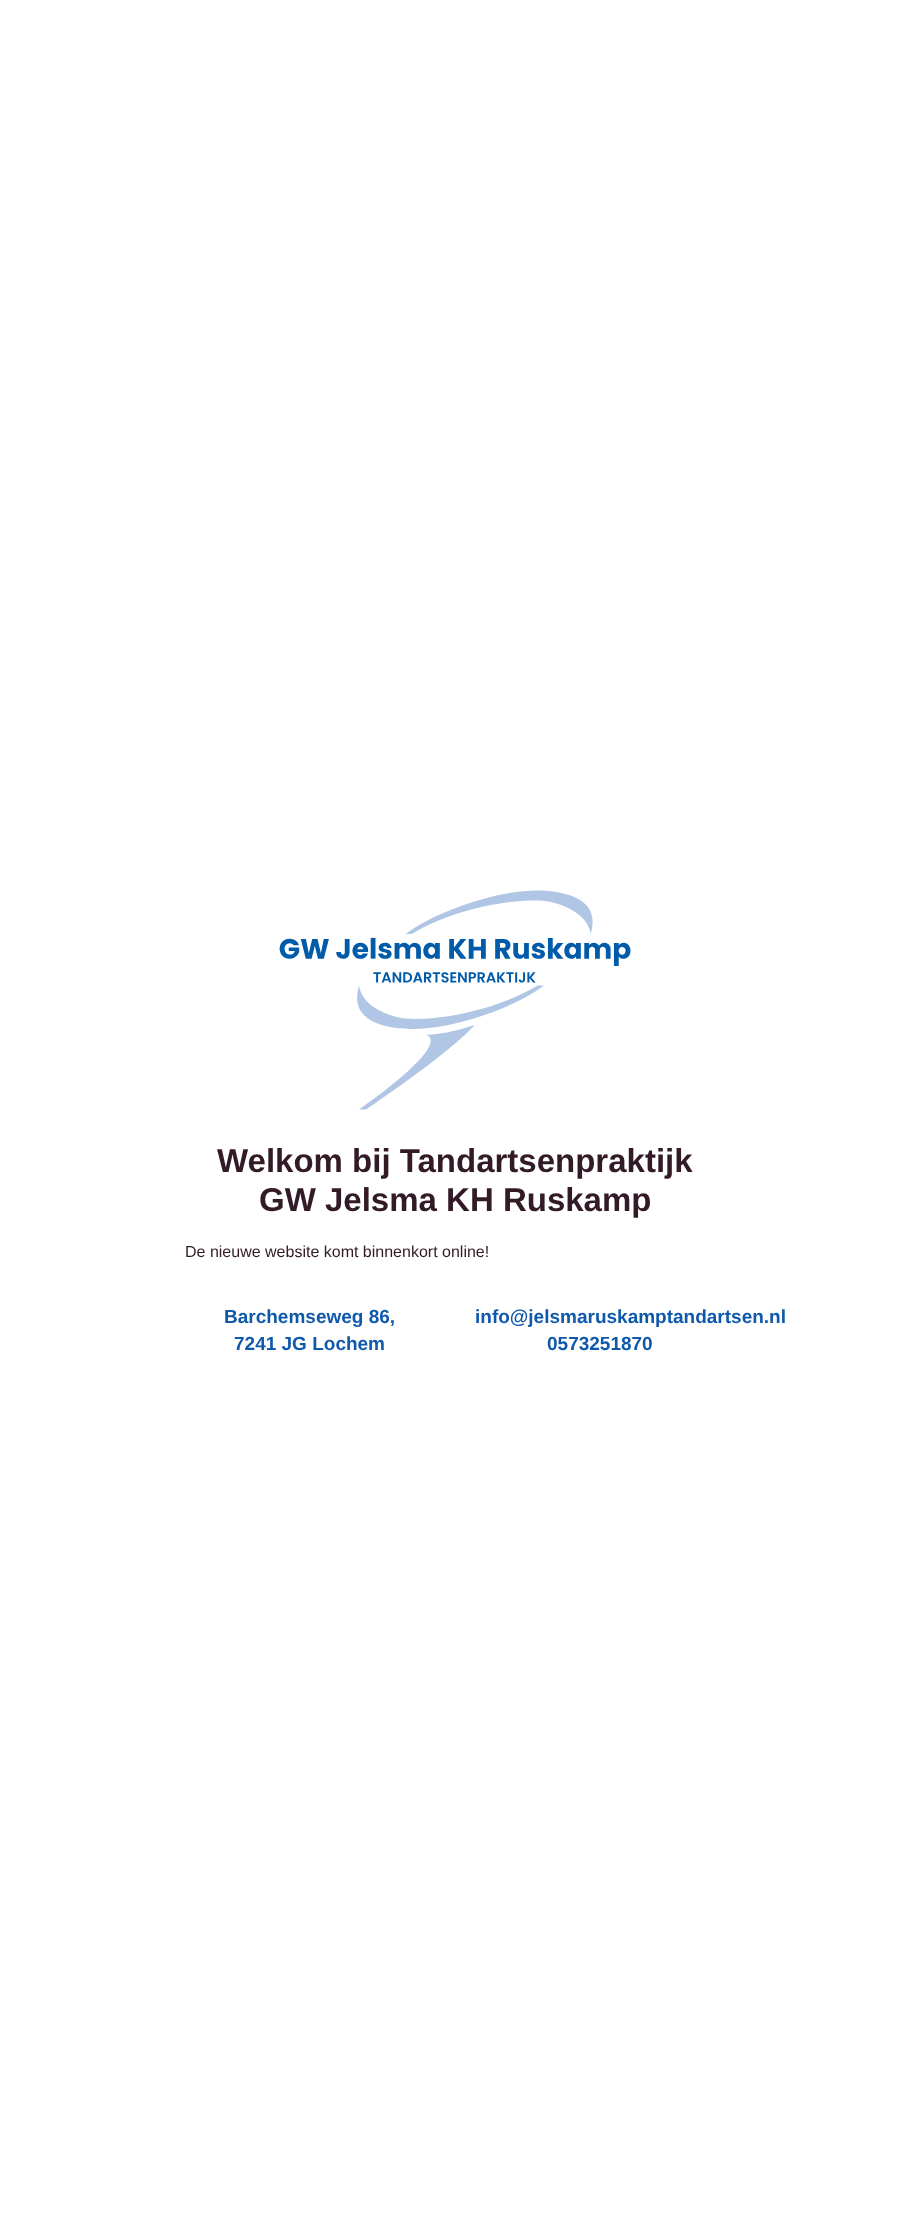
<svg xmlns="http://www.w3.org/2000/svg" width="910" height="2236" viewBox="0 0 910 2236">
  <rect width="100%" height="100%" fill="rgb(255,255,255)"/>
  <image x="279" y="890" width="352" height="220" href="pic1.png"/>
  <g font-family="Liberation Sans" font-size="33" font-weight="bold" fill="rgb(50,27,38)">
    <text x="217" y="1172">Welkom bij Tandartsenpraktijk</text>
    <text x="259" y="1211">GW Jelsma KH Ruskamp</text>
  </g>
  <text x="185" y="1257" font-family="Liberation Sans" font-size="16" fill="rgb(50,27,38)">De nieuwe website komt binnenkort online!</text>
  <g font-family="Liberation Sans" font-size="19" font-weight="bold" fill="rgb(15,89,172)">
    <text x="224" y="1323">Barchemseweg 86,</text>
    <text x="234" y="1350">7241 JG Lochem</text>
    <text x="475" y="1323">info@jelsmaruskamptandartsen.nl</text>
    <text x="547" y="1350">0573251870</text>
  </g>
</svg>
